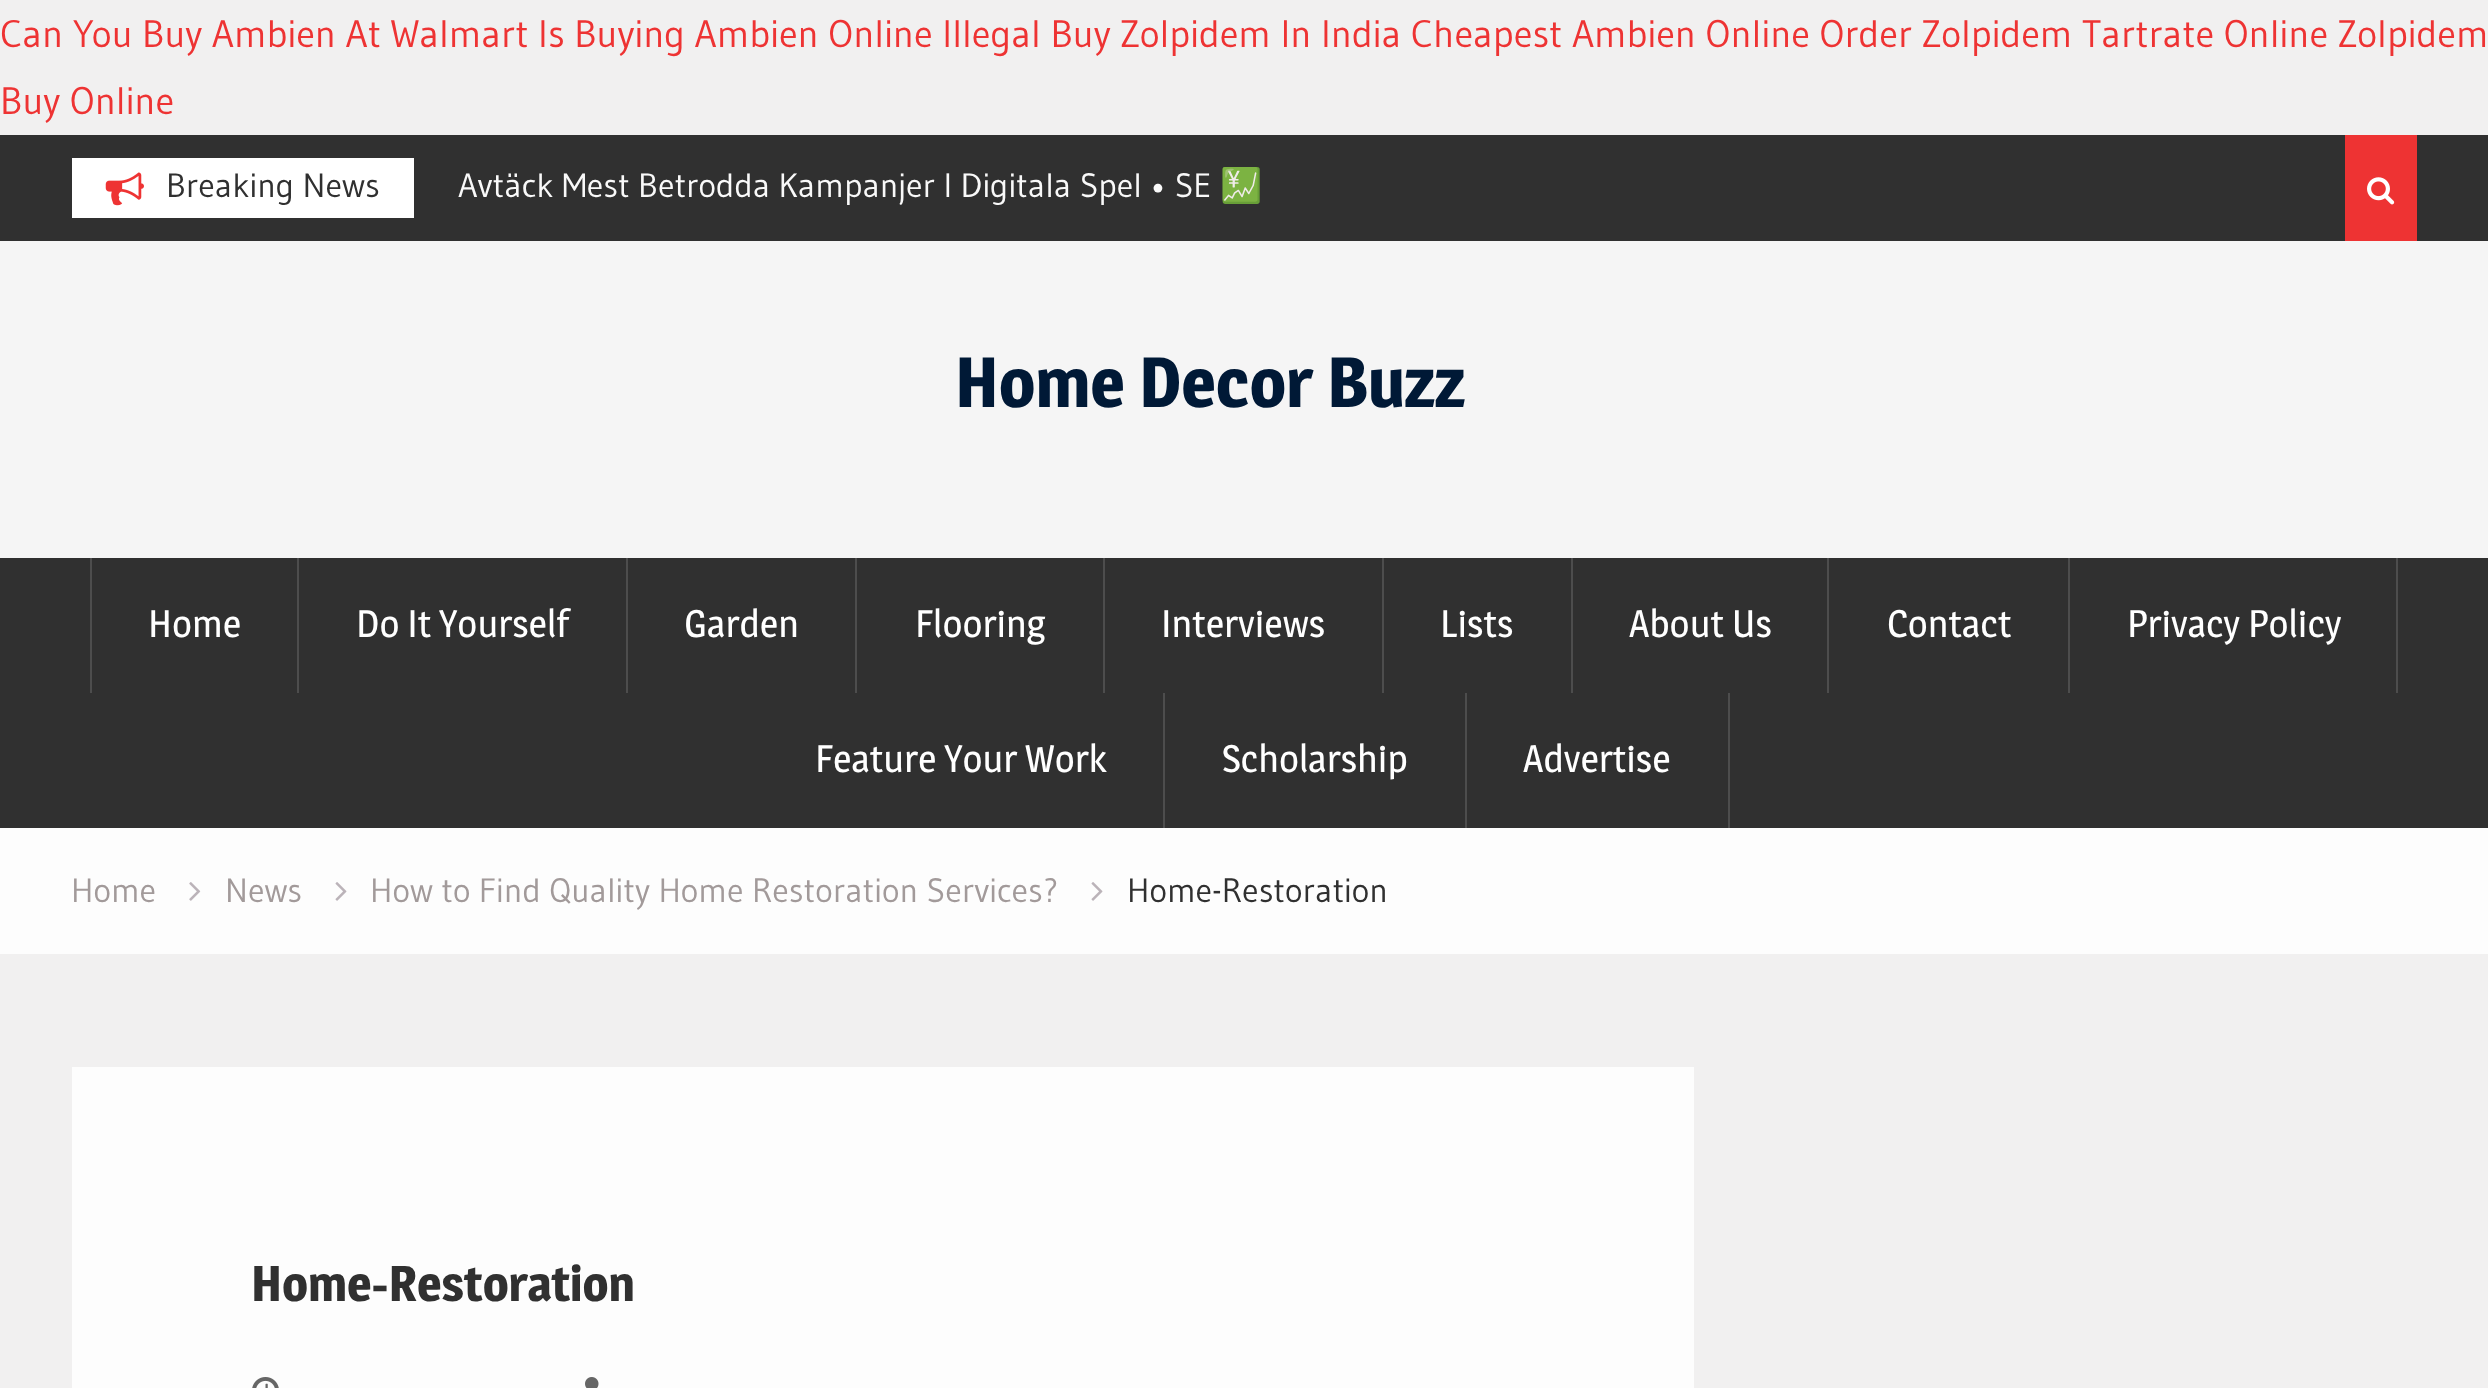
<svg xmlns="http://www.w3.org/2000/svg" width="2488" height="1388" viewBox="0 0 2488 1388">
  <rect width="100%" height="100%" fill="rgb(241,240,240)"/>
  <g font-family="Gudea" font-size="38.25" fill="rgb(238,51,51)">
    <text>
      <tspan x="0" y="47">Can You Buy Ambien At Walmart Is Buying Ambien Online Illegal Buy Zolpidem In India Cheapest Ambien Online Order Zolpidem Tartrate Online Zolpidem</tspan>
      <tspan x="0" y="114">Buy Online</tspan>
    </text>
  </g>
  <rect x="0" y="135" width="2488" height="106" fill="rgb(48,48,48)"/>
  <rect x="72" y="158" width="342" height="60" fill="rgb(255,255,255)"/>
  <image x="105" y="172" width="39" height="34" href="pic1.png"/>
  <text x="166" y="197" font-family="Gudea" font-size="33.75" fill="rgb(48,48,48)">Breaking News</text>
  <text x="458" y="197" font-family="Gudea" font-size="33.75" fill="rgb(249,249,249)">Avtäck Mest Betrodda Kampanjer I Digitala Spel • SE</text>
  <text x="1220" y="197" font-family="Noto Color Emoji" font-size="33.75" fill="rgb(249,249,249)">💹</text>
  <rect x="2345" y="135" width="72" height="106" fill="rgb(238,51,51)"/>
  <image x="2367" y="177" width="28" height="28" href="pic2.png"/>
  <rect x="0" y="241" width="2488" height="317" fill="rgb(245,245,245)"/>
  <text x="955" y="407" font-family="Magra" font-size="69.75" font-weight="bold" fill="rgb(0,25,54)">Home Decor Buzz</text>
  <rect x="0" y="558" width="2488" height="270" fill="rgb(48,48,48)"/>
  <rect x="297" y="558" width="2" height="135" fill="rgb(77,77,77)"/>
  <rect x="90" y="558" width="2" height="135" fill="rgb(77,77,77)"/>
  <text x="148" y="637" font-family="Magra" font-size="38.25" fill="rgb(255,255,255)">Home</text>
  <rect x="626" y="558" width="2" height="135" fill="rgb(77,77,77)"/>
  <text x="356" y="637" font-family="Magra" font-size="38.25" fill="rgb(255,255,255)">Do It Yourself</text>
  <rect x="855" y="558" width="2" height="135" fill="rgb(77,77,77)"/>
  <text x="684" y="637" font-family="Magra" font-size="38.25" fill="rgb(255,255,255)">Garden</text>
  <rect x="1103" y="558" width="2" height="135" fill="rgb(77,77,77)"/>
  <text x="915" y="637" font-family="Magra" font-size="38.25" fill="rgb(255,255,255)">Flooring</text>
  <rect x="1382" y="558" width="2" height="135" fill="rgb(77,77,77)"/>
  <text x="1161" y="637" font-family="Magra" font-size="38.25" fill="rgb(255,255,255)">Interviews</text>
  <rect x="1571" y="558" width="2" height="135" fill="rgb(77,77,77)"/>
  <text x="1440" y="637" font-family="Magra" font-size="38.25" fill="rgb(255,255,255)">Lists</text>
  <rect x="1827" y="558" width="2" height="135" fill="rgb(77,77,77)"/>
  <text x="1629" y="637" font-family="Magra" font-size="38.25" fill="rgb(255,255,255)">About Us</text>
  <rect x="2068" y="558" width="2" height="135" fill="rgb(77,77,77)"/>
  <text x="1887" y="637" font-family="Magra" font-size="38.25" fill="rgb(255,255,255)">Contact</text>
  <rect x="2396" y="558" width="2" height="135" fill="rgb(77,77,77)"/>
  <text x="2127" y="637" font-family="Magra" font-size="38.25" fill="rgb(255,255,255)">Privacy Policy</text>
  <rect x="1163" y="693" width="2" height="135" fill="rgb(77,77,77)"/>
  <text x="815" y="772" font-family="Magra" font-size="38.25" fill="rgb(255,255,255)">Feature Your Work</text>
  <rect x="1465" y="693" width="2" height="135" fill="rgb(77,77,77)"/>
  <text x="1222" y="772" font-family="Magra" font-size="38.25" fill="rgb(255,255,255)">Scholarship</text>
  <rect x="1728" y="693" width="2" height="135" fill="rgb(77,77,77)"/>
  <text x="1523" y="772" font-family="Magra" font-size="38.25" fill="rgb(255,255,255)">Advertise</text>
  <rect x="0" y="828" width="2488" height="126" fill="rgb(253,253,253)"/>
  <text x="71" y="902" font-family="Gudea" font-size="33.75" fill="rgb(162,154,154)">Home</text>
  <image x="189" y="882" width="12" height="19" href="pic3.png"/>
  <text x="225" y="902" font-family="Gudea" font-size="33.75" fill="rgb(162,154,154)">News</text>
  <image x="335" y="882" width="12" height="19" href="pic4.png"/>
  <text x="370" y="902" font-family="Gudea" font-size="33.75" fill="rgb(162,154,154)">How to Find Quality Home Restoration Services?</text>
  <image x="1091" y="882" width="12" height="19" href="pic4.png"/>
  <text x="1127" y="902" font-family="Gudea" font-size="33.75" fill="rgb(48,48,48)">Home-Restoration</text>
  <rect x="72" y="1067" width="1622" height="321" fill="rgb(253,253,253)"/>
  <text x="251" y="1301" font-family="Magra" font-size="49.5" font-weight="bold" fill="rgb(48,48,48)">Home-Restoration</text>
  <image x="252" y="1377" width="27" height="11" href="pic5.png"/>
  <image x="585" y="1377" width="14" height="11" href="pic6.png"/>
</svg>
